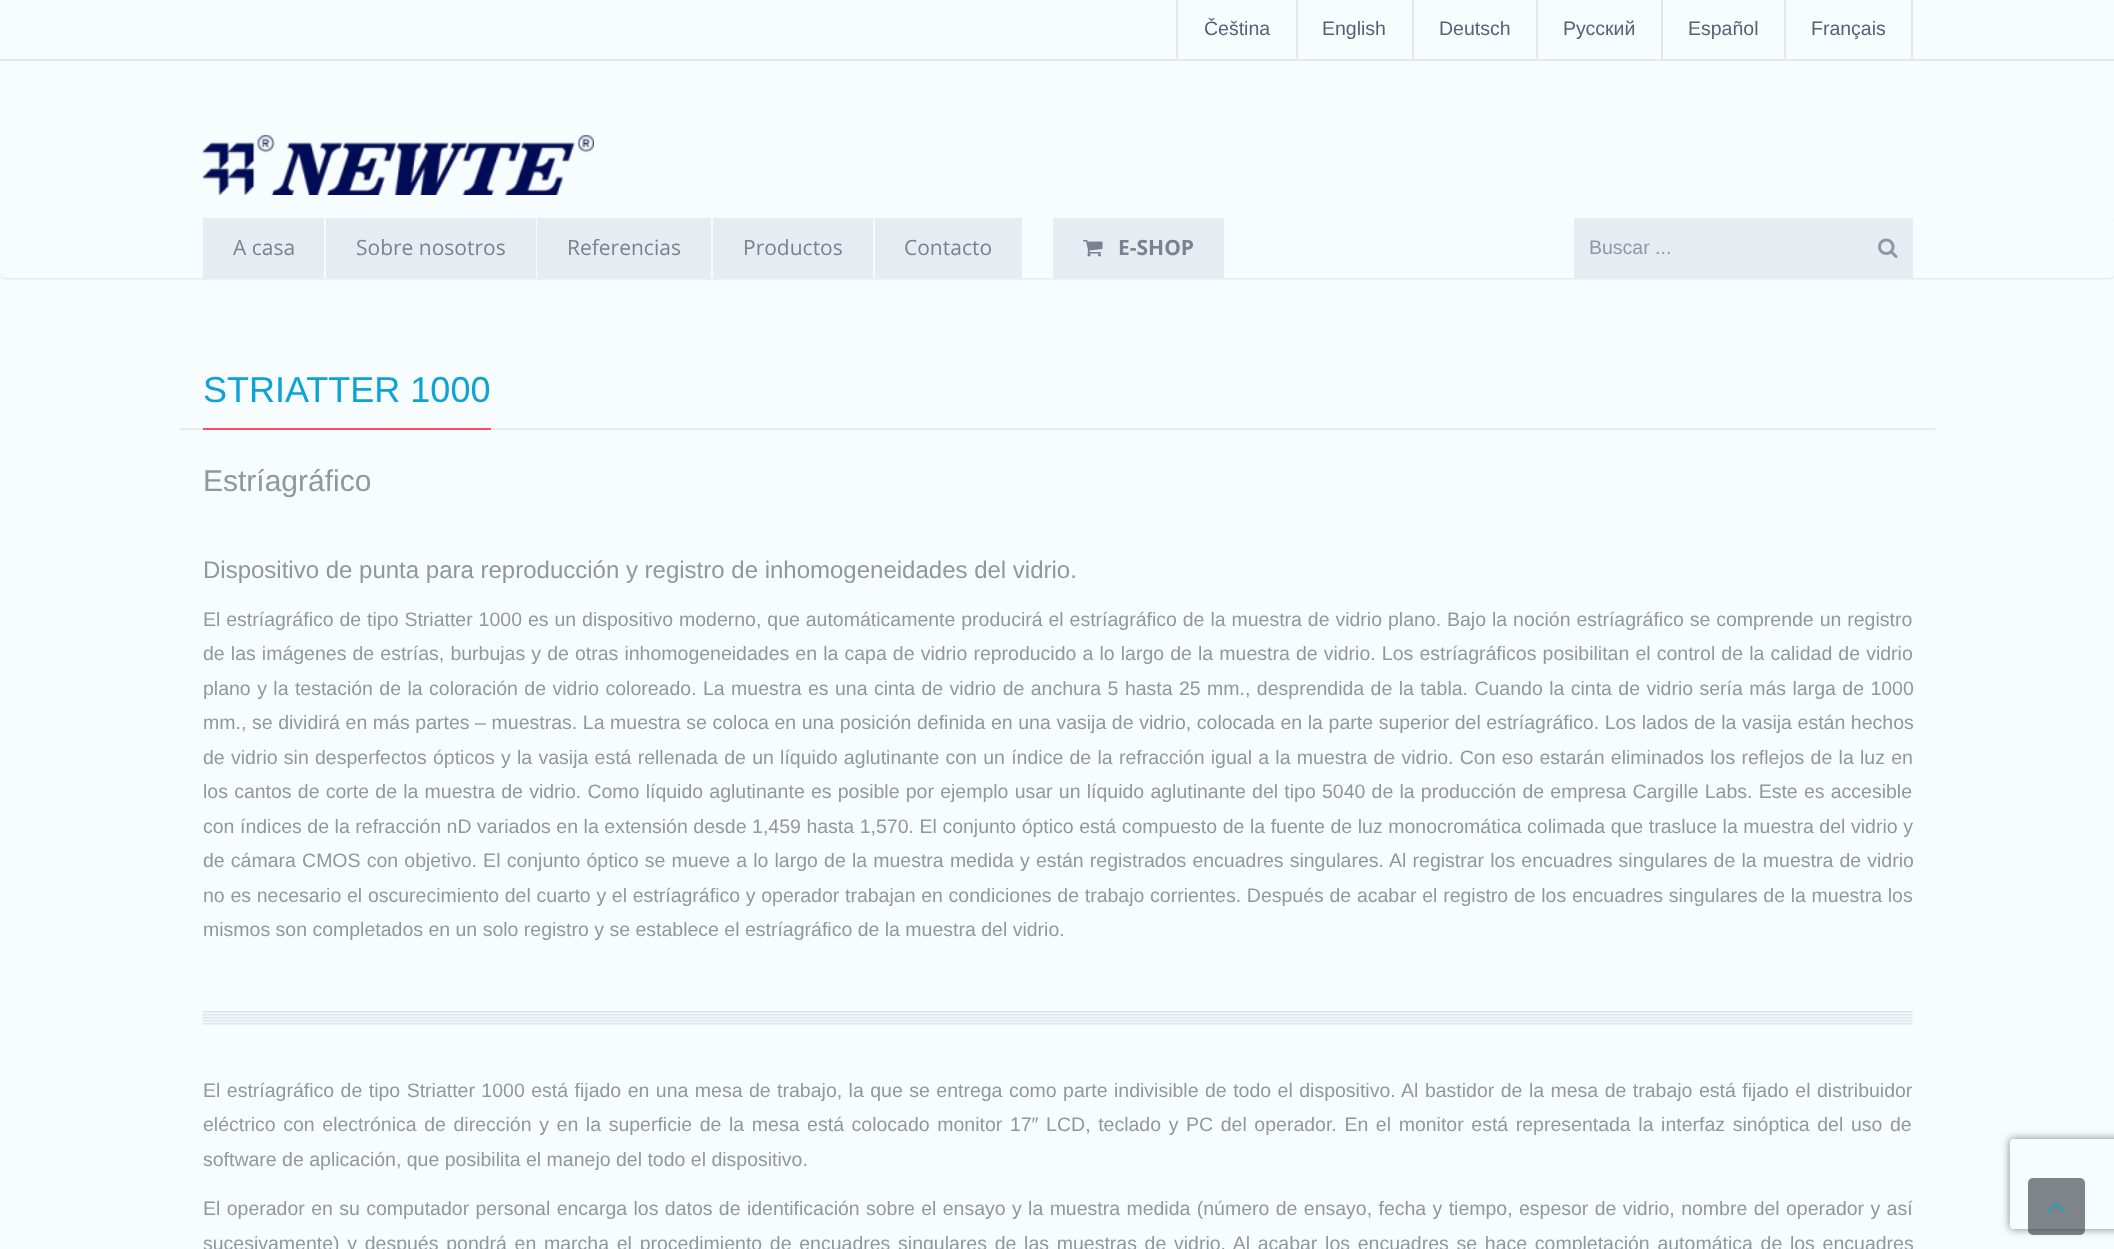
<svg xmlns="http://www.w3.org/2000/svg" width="2114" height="1249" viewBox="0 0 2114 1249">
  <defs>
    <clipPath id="clip1"><path d="M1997 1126H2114V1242H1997ZM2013 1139H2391C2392.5 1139 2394 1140.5 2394 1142V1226C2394 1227.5 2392.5 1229 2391 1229H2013C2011.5 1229 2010 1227.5 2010 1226V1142C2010 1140.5 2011.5 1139 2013 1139Z" clip-rule="evenodd"/></clipPath>
  </defs>
  <rect width="100%" height="100%" fill="rgb(247,252,255)"/>
  <rect x="0" y="59" width="2114" height="2" fill="rgb(231,231,231)"/>
  <rect x="1176" y="0" width="2" height="60" fill="rgb(231,231,231)"/>
  <text x="1204" y="35" font-family="Liberation Sans" font-size="19.5" fill="rgb(86,97,116)">Čeština</text>
  <rect x="1296" y="0" width="2" height="60" fill="rgb(231,231,231)"/>
  <text x="1322" y="35" font-family="Liberation Sans" font-size="19.5" fill="rgb(86,97,116)">English</text>
  <rect x="1412" y="0" width="2" height="60" fill="rgb(231,231,231)"/>
  <text x="1439" y="35" font-family="Liberation Sans" font-size="19.5" fill="rgb(86,97,116)">Deutsch</text>
  <rect x="1536" y="0" width="2" height="60" fill="rgb(231,231,231)"/>
  <text x="1563" y="35" font-family="Liberation Sans" font-size="19.5" fill="rgb(86,97,116)">Русский</text>
  <rect x="1661" y="0" width="2" height="60" fill="rgb(231,231,231)"/>
  <text x="1688" y="35" font-family="Liberation Sans" font-size="19.5" fill="rgb(86,97,116)">Español</text>
  <rect x="1911" y="0" width="2" height="60" fill="rgb(231,231,231)"/>
  <rect x="1784" y="0" width="2" height="60" fill="rgb(231,231,231)"/>
  <text x="1811" y="35" font-family="Liberation Sans" font-size="19.5" fill="rgb(86,97,116)">Français</text>
  <image x="202" y="135" width="392" height="60" href="pic1.png"/>
  <rect x="0" y="219" width="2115" height="60" rx="6" fill="rgba(0,0,0,0.1)" filter="blur(1px)"/>
  <rect x="0" y="218" width="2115" height="60" rx="6" fill="rgb(247,252,255)"/>
  <rect x="203" y="218" width="121" height="60" fill="rgb(230,237,242)"/>
  <text x="233" y="255" font-family="Open Sans" font-size="21" fill="rgb(122,130,143)">A casa</text>
  <rect x="326" y="218" width="210" height="60" fill="rgb(230,237,242)"/>
  <text x="356" y="255" font-family="Open Sans" font-size="21" fill="rgb(122,130,143)">Sobre nosotros</text>
  <rect x="537" y="218" width="174" height="60" fill="rgb(230,237,242)"/>
  <text x="567" y="255" font-family="Open Sans" font-size="21" fill="rgb(122,130,143)">Referencias</text>
  <rect x="713" y="218" width="160" height="60" fill="rgb(230,237,242)"/>
  <text x="743" y="255" font-family="Open Sans" font-size="21" fill="rgb(122,130,143)">Productos</text>
  <rect x="875" y="218" width="147" height="60" fill="rgb(230,237,242)"/>
  <text x="904" y="255" font-family="Open Sans" font-size="21" fill="rgb(122,130,143)">Contacto</text>
  <rect x="1053" y="218" width="171" height="60" fill="rgb(230,237,242)"/>
  <image x="1083" y="240" width="20" height="17" href="pic2.png"/>
  <text x="1118" y="255" font-family="Open Sans" font-size="21" font-weight="bold" fill="rgb(122,130,143)">E-SHOP</text>
  <rect x="1574" y="218" width="339" height="60" fill="rgb(230,237,242)"/>
  <text x="1589" y="254" font-family="Liberation Sans" font-size="19.5" fill="rgb(145,151,159)">Buscar ...</text>
  <image x="1878" y="238" width="20" height="20" href="pic3.png"/>
  <rect x="180" y="428" width="1755" height="2" fill="rgb(234,234,234)"/>
  <text x="203" y="402" font-family="Liberation Sans" font-size="36" fill="rgb(15,162,213)">STRIATTER 1000</text>
  <rect x="203" y="428" width="288" height="2" fill="rgb(255,75,100)"/>
  <text x="203" y="491" font-family="Liberation Sans" font-size="30" fill="rgb(145,151,159)">Estríagráfico</text>
  <text x="203" y="578" font-family="Liberation Sans" font-size="24" fill="rgb(145,151,159)">Dispositivo de punta para reproducción y registro de inhomogeneidades del vidrio.</text>
  <g font-family="Liberation Sans" font-size="19.5" fill="rgb(145,151,159)">
    <text>
      <tspan x="203" y="626" word-spacing="0.5">El estríagráfico de tipo Striatter 1000 es un dispositivo moderno, que automáticamente producirá el estríagráfico de la muestra de vidrio plano. Bajo la noción estríagráfico se comprende un registro</tspan>
      <tspan x="203" y="660" word-spacing="0.7">de las imágenes de estrías, burbujas y de otras inhomogeneidades en la capa de vidrio reproducido a lo largo de la muestra de vidrio. Los estríagráficos posibilitan el control de la calidad de vidrio</tspan>
      <tspan x="203" y="695" word-spacing="1">plano y la testación de la coloración de vidrio coloreado. La muestra es una cinta de vidrio de anchura 5 hasta 25 mm., desprendida de la tabla. Cuando la cinta de vidrio sería más larga de 1000</tspan>
      <tspan x="203" y="729" word-spacing="0.2">mm., se dividirá en más partes – muestras. La muestra se coloca en una posición definida en una vasija de vidrio, colocada en la parte superior del estríagráfico. Los lados de la vasija están hechos</tspan>
      <tspan x="203" y="764" word-spacing="0.85">de vidrio sin desperfectos ópticos y la vasija está rellenada de un líquido aglutinante con un índice de la refracción igual a la muestra de vidrio. Con eso estarán eliminados los reflejos de la luz en</tspan>
      <tspan x="203" y="798" word-spacing="0.8">los cantos de corte de la muestra de vidrio. Como líquido aglutinante es posible por ejemplo usar un líquido aglutinante del tipo 5040 de la producción de empresa Cargille Labs. Este es accesible</tspan>
      <tspan x="203" y="833" word-spacing="0.15">con índices de la refracción nD variados en la extensión desde 1,459 hasta 1,570. El conjunto óptico está compuesto de la fuente de luz monocromática colimada que trasluce la muestra del vidrio y</tspan>
      <tspan x="203" y="867" word-spacing="0.75">de cámara CMOS con objetivo. El conjunto óptico se mueve a lo largo de la muestra medida y están registrados encuadres singulares. Al registrar los encuadres singulares de la muestra de vidrio</tspan>
      <tspan x="203" y="902" word-spacing="0.3">no es necesario el oscurecimiento del cuarto y el estríagráfico y operador trabajan en condiciones de trabajo corrientes. Después de acabar el registro de los encuadres singulares de la muestra los</tspan>
      <tspan x="203" y="936">mismos son completados en un solo registro y se establece el estríagráfico de la muestra del vidrio.</tspan>
    </text>
  </g>
  <image x="202" y="1011" width="1711" height="14" href="pic4.png"/>
  <g font-family="Liberation Sans" font-size="19.5" fill="rgb(145,151,159)">
    <text>
      <tspan x="203" y="1097" word-spacing="1.05">El estríagráfico de tipo Striatter 1000 está fijado en una mesa de trabajo, la que se entrega como parte indivisible de todo el dispositivo. Al bastidor de la mesa de trabajo está fijado el distribuidor</tspan>
      <tspan x="203" y="1131" word-spacing="2.2">eléctrico con electrónica de dirección y en la superficie de la mesa está colocado monitor 17″ LCD, teclado y PC del operador. En el monitor está representada la interfaz sinóptica del uso de</tspan>
      <tspan x="203" y="1166">software de aplicación, que posibilita el manejo del todo el dispositivo.</tspan>
    </text>
    <text>
      <tspan x="203" y="1215" word-spacing="0.95">El operador en su computador personal encarga los datos de identificación sobre el ensayo y la muestra medida (número de ensayo, fecha y tiempo, espesor de vidrio, nombre del operador y así</tspan>
      <tspan x="203" y="1250" word-spacing="2.3">sucesivamente) y después pondrá en marcha el procedimiento de encuadres singulares de las muestras de vidrio. Al acabar los encuadres se hace completación automática de los encuadres</tspan>
    </text>
  </g>
  <g clip-path="url(#clip1)">
    <rect x="2010" y="1139" width="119" height="90" rx="3" fill="rgb(128,128,128)" filter="blur(4px)"/>
  </g>
  <rect x="2028" y="1178" width="57" height="57" rx="5" fill="rgba(46,52,62,0.6)"/>
  <image x="2047" y="1202" width="19" height="11" href="pic5.png"/>
</svg>
